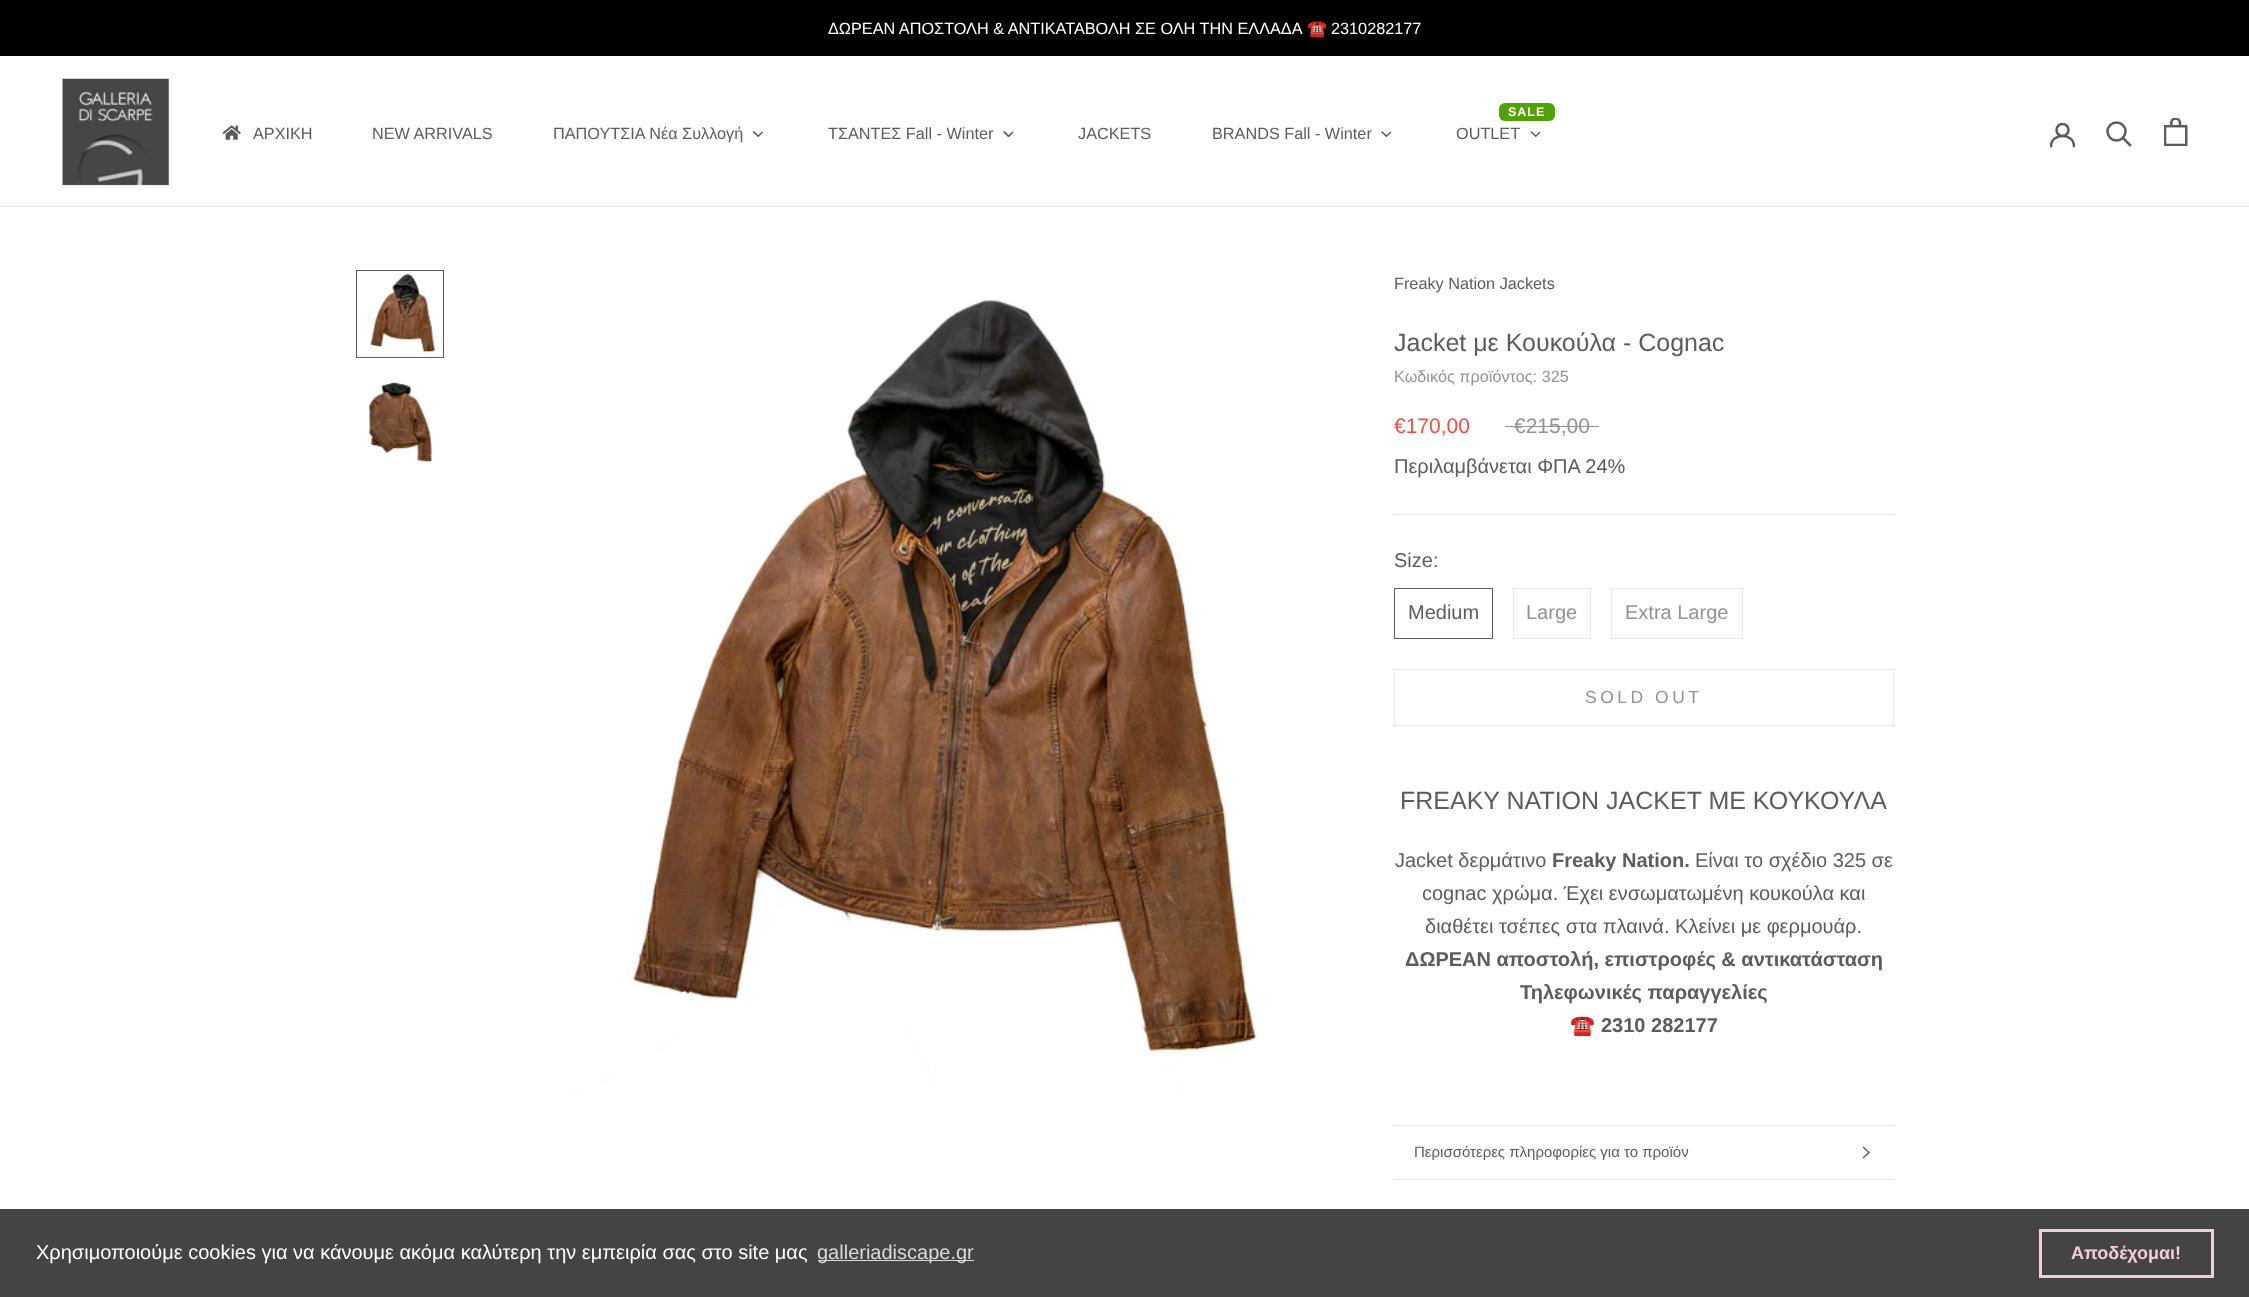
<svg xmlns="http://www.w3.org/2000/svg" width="2249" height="1297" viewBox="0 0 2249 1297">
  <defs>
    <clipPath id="clip1"><rect x="2050" y="123" width="25" height="25"/></clipPath>
  </defs>
  <rect width="100%" height="100%" fill="rgb(255,255,255)"/>
  <rect x="0" y="0" width="2249" height="56" fill="rgb(0,0,0)"/>
  <text x="828" y="34" font-family="Liberation Sans" font-size="16.25" fill="rgb(255,255,255)">ΔΩΡΕΑΝ ΑΠΟΣΤΟΛΗ &amp; ΑΝΤΙΚΑΤΑΒΟΛΗ ΣΕ ΟΛΗ ΤΗΝ ΕΛΛΑΔΑ</text>
  <text x="1307" y="34" font-family="Noto Color Emoji" font-size="16.25" fill="rgb(255,255,255)">☎️</text>
  <text x="1331" y="34" font-family="Liberation Sans" font-size="16.25" fill="rgb(255,255,255)">2310282177</text>
  <rect x="0" y="206" width="2249" height="1" fill="rgb(231,231,231)"/>
  <image x="62" y="78" width="107" height="108" href="pic1.png"/>
  <image x="222" y="125" width="19" height="15" href="pic2.png"/>
  <g font-family="Liberation Sans" font-size="16.25" fill="rgb(92,92,92)">
    <text x="253" y="139">ΑΡΧΙΚΗ</text>
    <text x="372" y="139">NEW ARRIVALS</text>
    <text x="553" y="139">ΠΑΠΟΥΤΣΙΑ Νέα Συλλογή</text>
  </g>
  <path d="M762 131.5L763 132.5L758.5 137L757.5 136Z" fill="rgb(92,92,92)"/>
  <path d="M754 131L759 136L758 137L752.5 132Z" fill="rgb(92,92,92)"/>
  <text x="828" y="139" font-family="Liberation Sans" font-size="16.25" fill="rgb(92,92,92)">ΤΣΑΝΤΕΣ Fall - Winter</text>
  <path d="M1012.5 131.5L1013.5 132.5L1009 137L1007.5 136Z" fill="rgb(92,92,92)"/>
  <path d="M1004.5 131L1009.5 136L1008 137L1003 132Z" fill="rgb(92,92,92)"/>
  <g font-family="Liberation Sans" font-size="16.25" fill="rgb(92,92,92)">
    <text x="1078" y="139">JACKETS</text>
    <text x="1212" y="139">BRANDS Fall - Winter</text>
  </g>
  <path d="M1390.5 131.5L1391.5 132.5L1386.5 137L1385.5 136Z" fill="rgb(92,92,92)"/>
  <path d="M1382 131L1387.5 136L1386 137L1381 132Z" fill="rgb(92,92,92)"/>
  <rect x="1499" y="103" width="56" height="18" rx="6" fill="rgb(82,161,4)"/>
  <text x="1508" y="116" font-family="Liberation Sans" font-size="12.5" font-weight="bold" letter-spacing="1" fill="rgb(255,255,255)">SALE</text>
  <text x="1456" y="139" font-family="Liberation Sans" font-size="16.25" fill="rgb(92,92,92)">OUTLET</text>
  <path d="M1539.5 131.5L1540.5 132.5L1536 137L1535 136Z" fill="rgb(92,92,92)"/>
  <path d="M1531.5 131L1536.5 136L1535.5 137L1530.5 132Z" fill="rgb(92,92,92)"/>
  <g clip-path="url(#clip1)">
    <path d="M2051 146C2051 132.5 2074 132.5 2074 146" fill="none" stroke="rgb(92,92,92)" stroke-width="2.5" stroke-linecap="square"/>
    <circle cx="2062.5" cy="130" r="6" fill="none" stroke="rgb(92,92,92)" stroke-width="2.5"/>
  </g>
  <path d="M2130 145L2123 138" fill="none" stroke="rgb(92,92,92)" stroke-width="2.5" stroke-linecap="square"/>
  <circle cx="2116.5" cy="131.5" r="9" fill="none" stroke="rgb(92,92,92)" stroke-width="2.5"/>
  <image x="2164" y="118" width="24" height="28" href="pic3.png"/>
  <rect x="356.5" y="270.5" width="87" height="87" fill="none" stroke="rgb(92,92,92)"/>
  <image x="370" y="274" width="66" height="79" href="pic4.png"/>
  <image x="368" y="382" width="64" height="80" href="pic5.png"/>
  <image x="572" y="298" width="687" height="797" href="pic6.png"/>
  <rect x="1394" y="514" width="500" height="1" fill="rgb(231,231,231)"/>
  <text x="1394" y="289" font-family="Liberation Sans" font-size="16.25" fill="rgb(92,92,92)">Freaky Nation Jackets</text>
  <text x="1394" y="351" font-family="Liberation Sans" font-size="25" fill="rgb(92,92,92)">Jacket με Κουκούλα - Cognac</text>
  <text x="1394" y="382" font-family="Liberation Sans" font-size="16.25" fill="rgb(147,147,147)">Κωδικός προϊόντος: 325</text>
  <text x="1394" y="433" font-family="Liberation Sans" font-size="21" fill="rgb(249,76,67)">€170,00</text>
  <text x="1514" y="433" font-family="Liberation Sans" font-size="21" fill="rgb(147,147,147)">€215,00</text>
  <rect x="1505" y="426" width="94" height="1" fill="rgb(147,147,147)"/>
  <g font-family="Liberation Sans" font-size="20" fill="rgb(92,92,92)">
    <text x="1394" y="473">Περιλαμβάνεται ΦΠΑ 24%</text>
    <text x="1394" y="567">Size:</text>
  </g>
  <rect x="1394.5" y="588.5" width="98" height="50" fill="none" stroke="rgb(92,92,92)"/>
  <text x="1408" y="619" font-family="Liberation Sans" font-size="20" fill="rgb(92,92,92)">Medium</text>
  <rect x="1513.5" y="588.5" width="77" height="50" fill="none" stroke="rgb(231,231,231)"/>
  <text x="1526" y="619" font-family="Liberation Sans" font-size="20" fill="rgb(147,147,147)">Large</text>
  <rect x="1611.5" y="588.5" width="131" height="50" fill="none" stroke="rgb(231,231,231)"/>
  <text x="1625" y="619" font-family="Liberation Sans" font-size="20" fill="rgb(147,147,147)">Extra Large</text>
  <rect x="1394.5" y="669.5" width="499" height="56" fill="none" stroke="rgb(233,233,233)"/>
  <text x="1585" y="703" font-family="Liberation Sans" font-size="17.5" letter-spacing="3.5" fill="rgb(147,147,147)">SOLD OUT</text>
  <text x="1400" y="809" font-family="Liberation Sans" font-size="25" fill="rgb(92,92,92)">FREAKY NATION JACKET ΜΕ ΚΟΥΚΟΥΛΑ</text>
  <text x="1395" y="867" font-family="Liberation Sans" font-size="20" fill="rgb(92,92,92)">Jacket δερμάτινo</text>
  <text x="1552" y="867" font-family="Liberation Sans" font-size="20" font-weight="bold" fill="rgb(92,92,92)">Freaky Nation.</text>
  <g font-family="Liberation Sans" font-size="20" fill="rgb(92,92,92)">
    <text x="1695" y="867">Είναι το σχέδιο 325 σε</text>
    <text x="1422" y="900">cognac χρώμα. Έχει ενσωματωμένη κουκούλα και</text>
    <text x="1425" y="933">διαθέτει τσέπες στα πλαινά. Κλείνει με φερμουάρ.</text>
  </g>
  <g font-family="Liberation Sans" font-size="20" font-weight="bold" fill="rgb(92,92,92)">
    <text x="1405" y="966">ΔΩΡΕΑΝ αποστολή, επιστροφές &amp; αντικατάσταση</text>
    <text x="1520" y="999">Τηλεφωνικές παραγγελίες</text>
  </g>
  <text x="1570" y="1032" font-family="Noto Color Emoji" font-size="20" font-weight="bold" fill="rgb(92,92,92)">☎️</text>
  <text x="1601" y="1032" font-family="Liberation Sans" font-size="20" font-weight="bold" fill="rgb(92,92,92)">2310 282177</text>
  <rect x="1394" y="1125" width="500" height="1" fill="rgb(231,231,231)"/>
  <rect x="1394" y="1179" width="500" height="1" fill="rgb(231,231,231)"/>
  <text x="1414" y="1157" font-family="Liberation Sans" font-size="15" fill="rgb(92,92,92)">Περισσότερες πληροφορίες για το προϊόν</text>
  <path d="M1863.5 1147.5L1869 1152.5L1863.5 1157.5" fill="none" stroke="rgb(92,92,92)" stroke-width="1.4" stroke-linecap="square"/>
  <rect x="0" y="1209" width="2249" height="88" fill="rgb(68,68,68)"/>
  <text x="36" y="1259" font-family="Liberation Sans" font-size="20" fill="rgb(255,255,255)">Χρησιμοποιούμε cookies για να κάνουμε ακόμα καλύτερη την εμπειρία σας στο site μας</text>
  <rect x="818" y="1260" width="156" height="1" fill="rgb(218,218,218)"/>
  <text x="817" y="1259" font-family="Liberation Sans" font-size="20" fill="rgb(218,218,218)">galleriadiscape.gr</text>
  <rect x="2040.5" y="1230.5" width="172" height="46" fill="none" stroke="rgb(247,204,214)" stroke-width="3"/>
  <text x="2071" y="1259" font-family="Liberation Sans" font-size="18" font-weight="bold" fill="rgb(247,204,214)">Αποδέχομαι!</text>
</svg>
